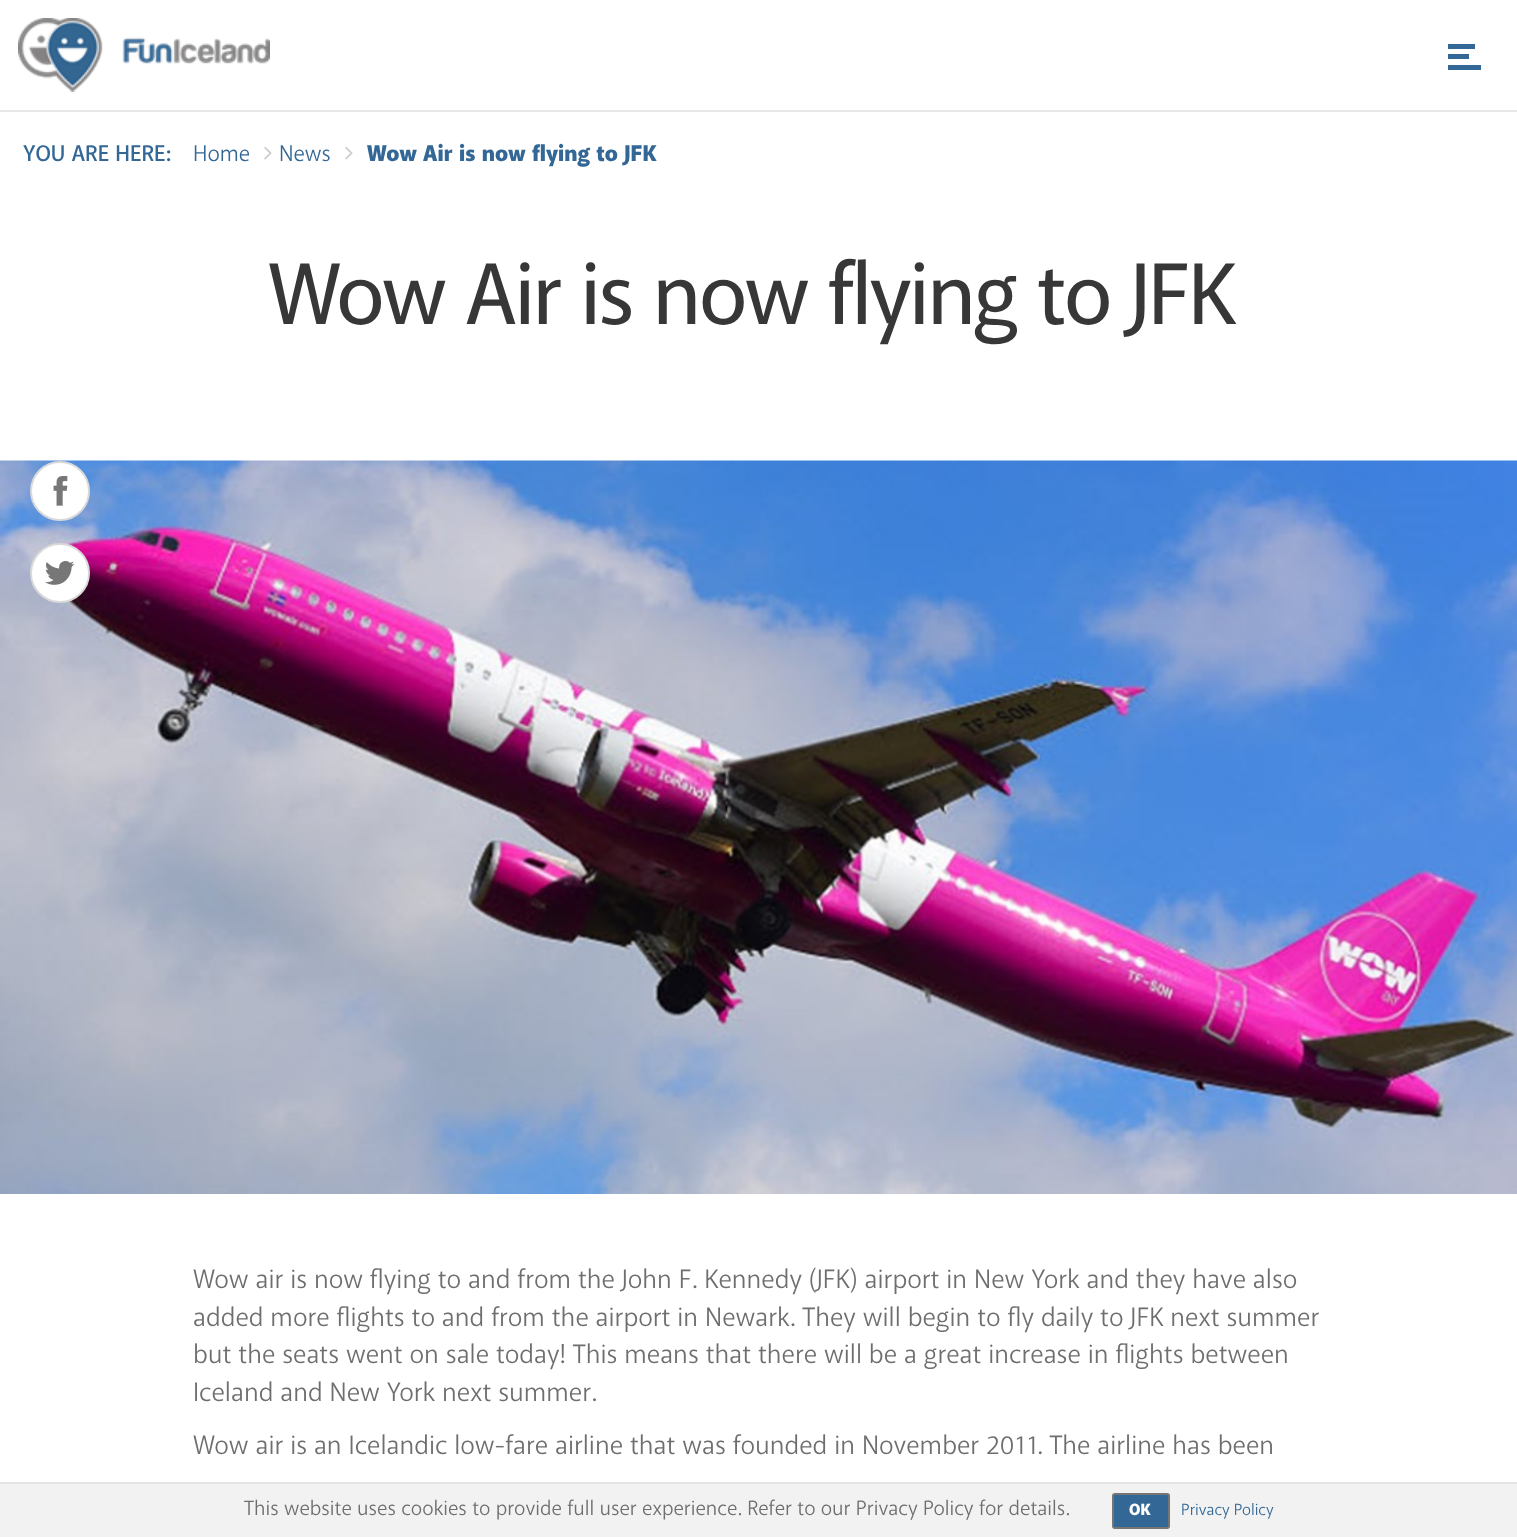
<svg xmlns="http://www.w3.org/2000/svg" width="1517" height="1537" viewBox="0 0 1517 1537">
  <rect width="100%" height="100%" fill="rgb(255,255,255)"/>
  <rect x="0" y="110" width="1517" height="2" fill="rgb(231,231,231)"/>
  <image x="18" y="18" width="252" height="74" href="pic1.png"/>
  <rect x="1448" y="44" width="27" height="5" fill="rgb(51,103,149)"/>
  <rect x="1448" y="54" width="21" height="5" fill="rgb(51,103,149)"/>
  <rect x="1448" y="65" width="33" height="5" fill="rgb(51,103,149)"/>
  <text x="23" y="161" font-family="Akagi" font-size="22.9" font-weight="600" fill="rgb(51,103,149)">YOU ARE HERE:</text>
  <text x="193" y="161" font-family="Akagi" font-size="22.9" fill="rgb(51,103,149)">Home</text>
  <image x="264" y="146" width="8" height="14" href="pic2.png"/>
  <text x="279" y="161" font-family="Akagi" font-size="22.9" fill="rgb(51,103,149)">News</text>
  <image x="345" y="146" width="8" height="14" href="pic2.png"/>
  <text x="367" y="161" font-family="'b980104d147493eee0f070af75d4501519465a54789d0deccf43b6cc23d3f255'" font-size="22.9" font-weight="900" fill="rgb(51,103,149)">Wow Air is now flying to JFK</text>
  <text x="268" y="324" font-family="'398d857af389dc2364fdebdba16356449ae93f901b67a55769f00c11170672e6'" font-size="88.5" font-weight="500" letter-spacing="-2.65" fill="rgb(55,55,55)">Wow Air is now flying to JFK</text>
  <image x="0" y="460" width="1517" height="734" href="pic3.png"/>
  <circle cx="60" cy="491" r="29" fill="rgb(255,255,255)" stroke="rgb(217,217,217)" stroke-width="2"/>
  <image x="53" y="476" width="15" height="30" href="pic4.png"/>
  <circle cx="60" cy="573" r="29" fill="rgb(255,255,255)" stroke="rgb(217,217,217)" stroke-width="2"/>
  <image x="45" y="561" width="30" height="24" href="pic5.png"/>
  <g font-family="Akagi" font-size="27" fill="rgb(110,110,110)">
    <text>
      <tspan x="193" y="1288">Wow air is now flying to and from the John F. Kennedy (JFK) airport in New York and they have also</tspan>
      <tspan x="193" y="1326">added more flights to and from the airport in Newark. They will begin to fly daily to JFK next summer</tspan>
      <tspan x="193" y="1363">but the seats went on sale today! This means that there will be a great increase in flights between</tspan>
      <tspan x="193" y="1401">Iceland and New York next summer.</tspan>
      <tspan x="193" y="1454">Wow air is an Icelandic low-fare airline that was founded in November 2011. The airline has been</tspan>
    </text>
  </g>
  <rect x="0" y="1484" width="1517" height="53" fill="rgb(242,242,242)"/>
  <rect x="0" y="1482" width="1517" height="2" fill="rgb(228,228,228)"/>
  <text x="244" y="1515" font-family="Akagi" font-size="21" fill="rgb(110,110,110)">This website uses cookies to provide full user experience. Refer to our Privacy Policy for details.</text>
  <rect x="1113" y="1494" width="56" height="34" rx="2" fill="rgb(51,103,149)" stroke="rgb(117,117,117)" stroke-width="2"/>
  <text x="1129" y="1515" font-family="'b980104d147493eee0f070af75d4501519465a54789d0deccf43b6cc23d3f255'" font-size="16.5" font-weight="900" fill="rgb(255,255,255)">OK</text>
  <text x="1181" y="1515" font-family="Akagi" font-size="16.5" fill="rgb(51,103,149)">Privacy Policy</text>
</svg>
